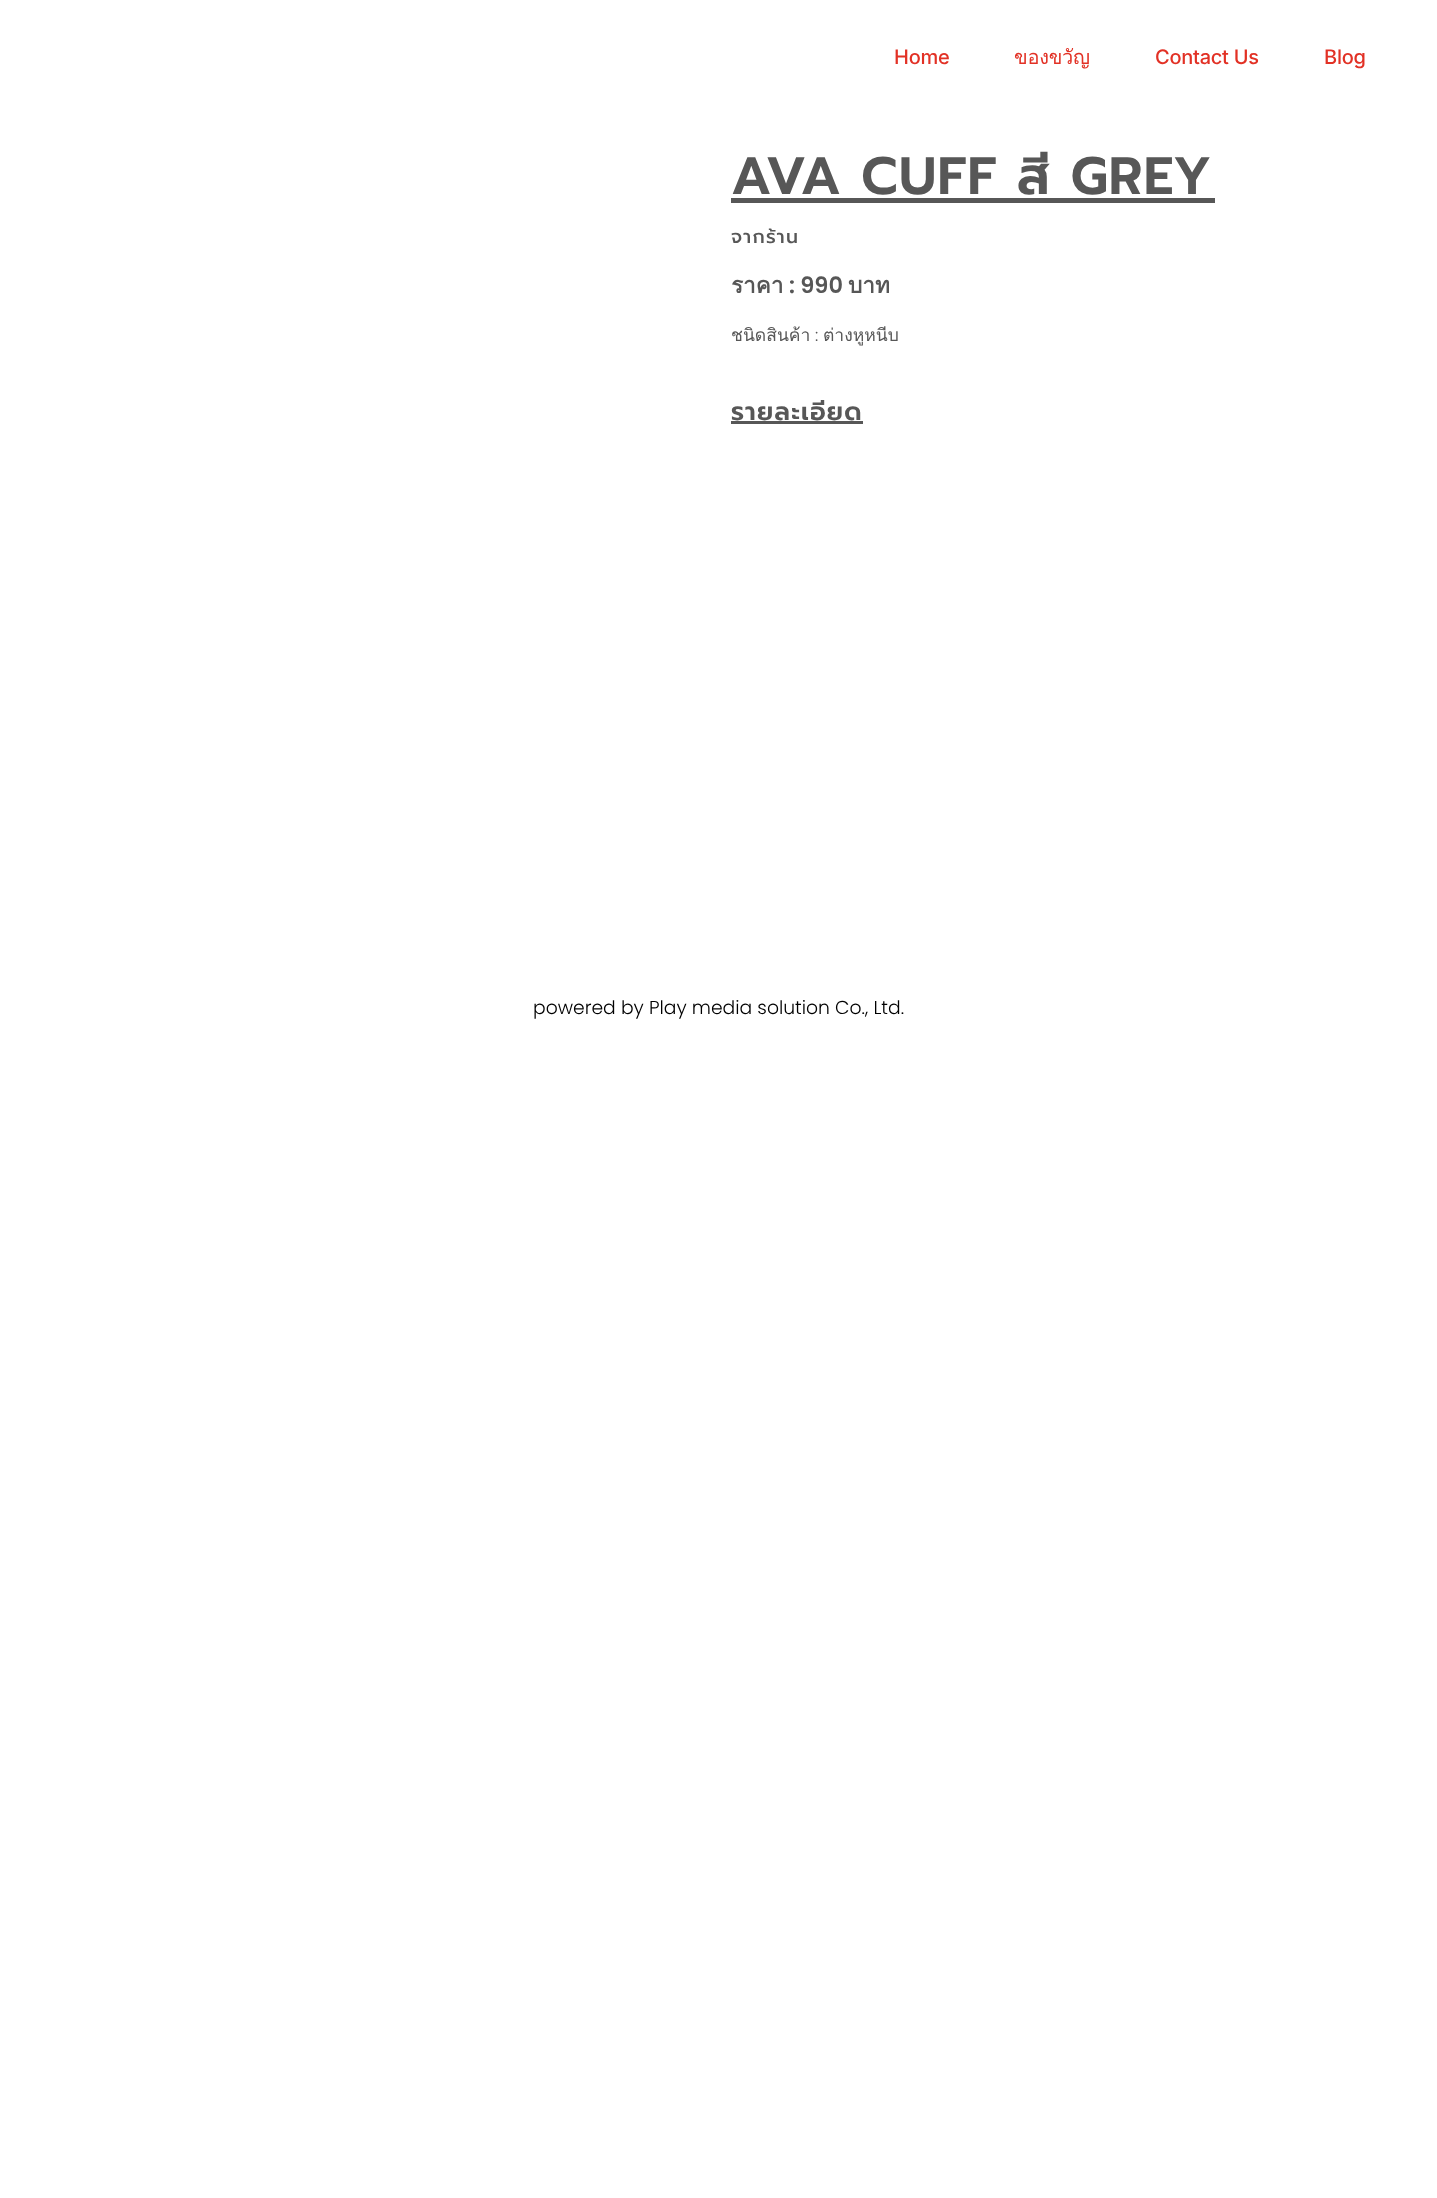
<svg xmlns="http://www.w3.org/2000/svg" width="1437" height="2198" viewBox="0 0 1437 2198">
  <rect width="100%" height="100%" fill="rgb(255,255,255)"/>
  <text x="894" y="64" font-family="Inter" font-size="20" font-weight="500" letter-spacing="-0.25" fill="rgb(226,49,37)">Home</text>
  <text x="1014" y="64" font-family="Loma" font-size="20" letter-spacing="-0.25" fill="rgb(226,49,37)">ของขวัญ</text>
  <g font-family="Inter" font-size="20" font-weight="500" letter-spacing="-0.25" fill="rgb(226,49,37)">
    <text x="1155" y="64">Contact Us</text>
    <text x="1324" y="64">Blog</text>
  </g>
  <text x="731" y="194" word-spacing="-0.5" font-family="Prompt" font-size="52.5" font-weight="600" letter-spacing="1.25" fill="rgb(87,87,87)">AVA CUFF สี GREY</text>
  <rect x="731" y="198" width="484" height="5" fill="rgb(87,87,87)"/>
  <text x="731" y="243" font-family="Prompt" font-size="18.75" font-weight="500" letter-spacing="1.25" fill="rgb(87,87,87)">จากร้าน</text>
  <text x="731" y="293" font-family="Loma" font-size="22.5" font-weight="bold" fill="rgb(87,87,87)">ราคา</text>
  <text x="789" y="293" font-family="Poppins" font-size="22.5" font-weight="600" fill="rgb(87,87,87)">: 990</text>
  <text x="848" y="293" font-family="Loma" font-size="22.5" font-weight="bold" fill="rgb(87,87,87)">บาท</text>
  <text x="731" y="341" font-family="Loma" font-size="17.5" fill="rgb(87,87,87)">ชนิดสินค้า</text>
  <text x="815" y="341" font-family="Poppins" font-size="17.5" font-weight="300" fill="rgb(87,87,87)">:</text>
  <text x="823" y="341" font-family="Loma" font-size="17.5" fill="rgb(87,87,87)">ต่างหูหนีบ</text>
  <text x="731" y="420" font-family="Prompt" font-size="25" font-weight="600" letter-spacing="1.25" fill="rgb(87,87,87)">รายละเอียด</text>
  <rect x="731" y="421" width="132" height="3" fill="rgb(87,87,87)"/>
  <text x="533" y="1014" font-family="Poppins" font-size="18.75" font-weight="300" fill="rgb(0,0,0)">powered by Play media solution Co., Ltd.</text>
</svg>
